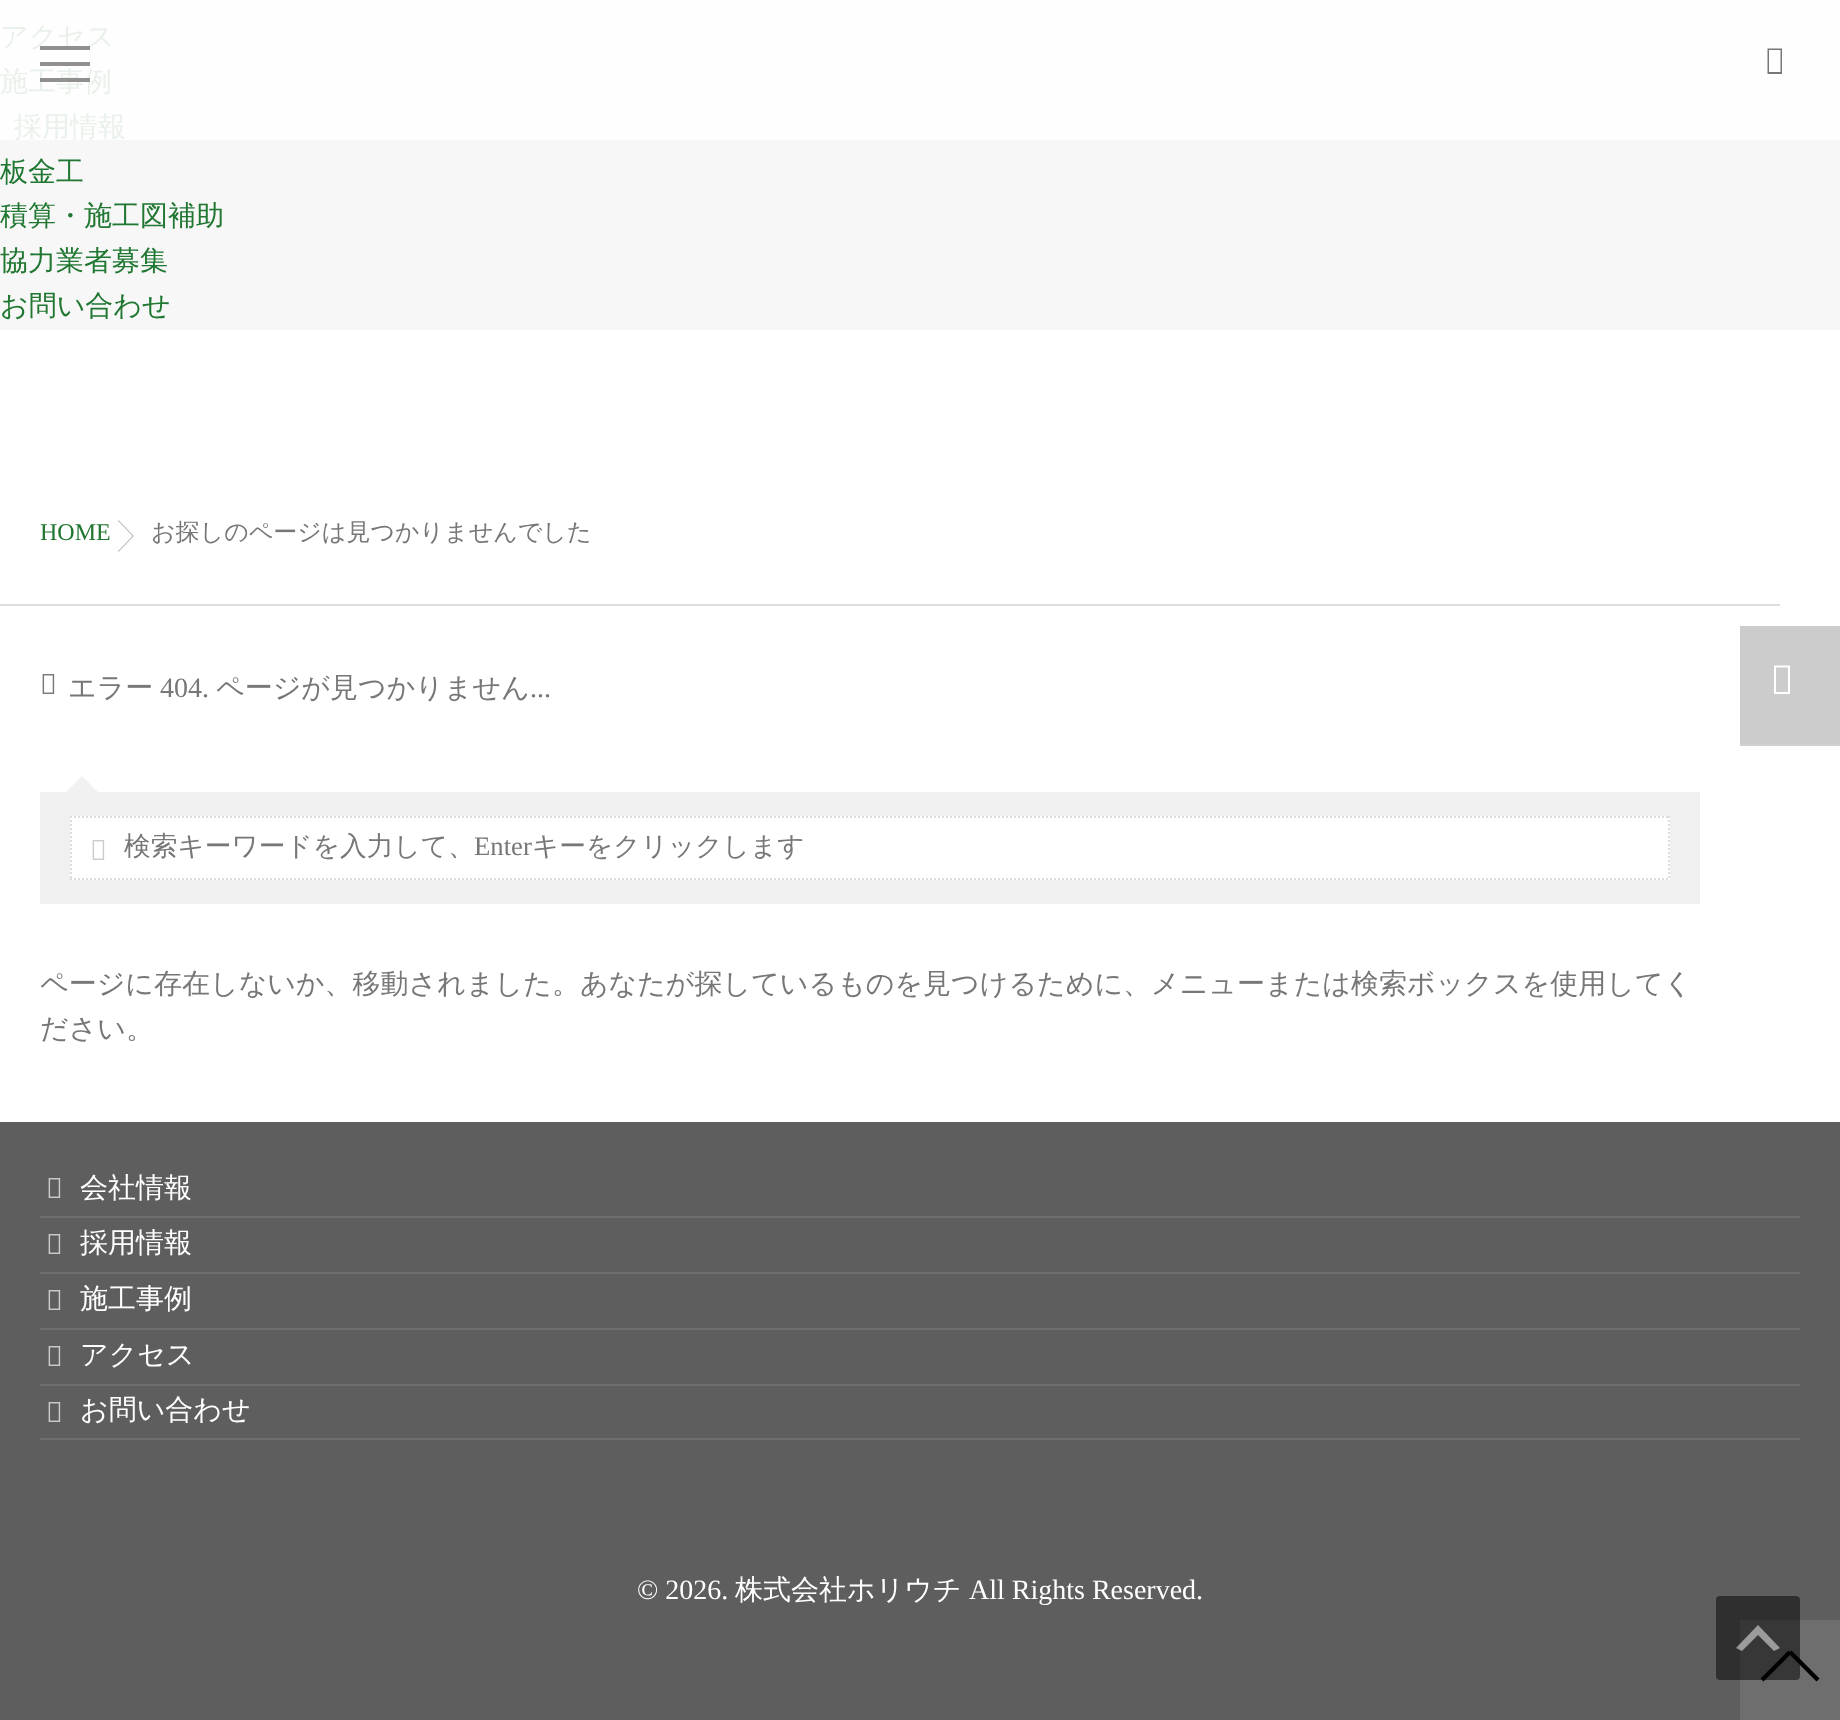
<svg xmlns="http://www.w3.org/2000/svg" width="1840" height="1720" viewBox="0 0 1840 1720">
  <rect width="100%" height="100%" fill="rgb(247,247,247)"/>
  <rect x="0" y="0" width="1840" height="140" fill="rgb(254,254,254)"/>
  <g font-family="WenQuanYi Zen Hei" font-size="28" font-weight="500" fill="rgb(233,241,234)">
    <text>
      <tspan x="0" y="46">アクセス</tspan>
      <tspan x="0" y="91">施工事例</tspan>
    </text>
    <text x="14" y="136">採用情報</text>
  </g>
  <g font-family="WenQuanYi Zen Hei" font-size="28" font-weight="500" fill="rgb(32,119,49)">
    <text>
      <tspan x="0" y="181">板金工</tspan>
      <tspan x="0" y="225">積算・施工図補助</tspan>
      <tspan x="0" y="270">協力業者募集</tspan>
      <tspan x="0" y="315">お問い合わせ</tspan>
    </text>
  </g>
  <rect x="0" y="330" width="1840" height="792" fill="rgb(255,255,255)"/>
  <rect x="40" y="46" width="50" height="4" fill="rgb(144,144,144)"/>
  <rect x="40" y="62" width="50" height="4" fill="rgb(144,144,144)"/>
  <rect x="40" y="78" width="50" height="4" fill="rgb(144,144,144)"/>
  <path d="M1767.5 74V48.5H1782V74ZM1769 72H1780.5V50H1769Z" fill="rgb(119,119,119)"/>
  <rect x="0" y="604" width="1780" height="2" fill="rgb(221,221,221)"/>
  <text x="40" y="540" font-family="Liberation Serif" font-size="24" fill="rgb(32,119,49)">HOME</text>
  <path d="M118 521L132.5 536L118 551L118.5 552L134 536L118.5 520Z" fill="rgb(188,188,188)"/>
  <text x="151" y="540" font-family="WenQuanYi Zen Hei" font-size="24" font-weight="500" fill="rgb(119,119,119)">お探しのページは見つかりませんでした</text>
  <image x="42" y="674" width="13" height="20" href="pic1.png"/>
  <text x="68" y="697" font-family="WenQuanYi Zen Hei" font-size="28" font-weight="500" fill="rgb(119,119,119)">エラー</text>
  <text x="160" y="697" font-family="Liberation Serif" font-size="28" fill="rgb(119,119,119)">404.</text>
  <text x="216" y="697" font-family="WenQuanYi Zen Hei" font-size="28" font-weight="500" fill="rgb(119,119,119)">ページが見つかりません</text>
  <text x="530" y="697" font-family="Liberation Serif" font-size="28" fill="rgb(119,119,119)">...</text>
  <rect x="40" y="792" width="1660" height="112" fill="rgb(240,240,240)"/>
  <path d="M98 792H66L82 776Z" fill="rgb(241,241,241)"/>
  <rect x="70" y="816" width="1600" height="64" fill="rgb(255,255,255)"/>
  <image x="92" y="840" width="13" height="20" href="pic2.png"/>
  <path d="M70 817H1670" fill="none" stroke="rgb(221,221,221)" stroke-width="2" stroke-dasharray="2 2"/>
  <path d="M1669 816V880" fill="none" stroke="rgb(221,221,221)" stroke-width="2" stroke-dasharray="2 2"/>
  <path d="M70 879H1670" fill="none" stroke="rgb(221,221,221)" stroke-width="2" stroke-dasharray="2 2"/>
  <path d="M71 816V880" fill="none" stroke="rgb(221,221,221)" stroke-width="2" stroke-dasharray="2 2"/>
  <text x="124" y="855" font-family="WenQuanYi Zen Hei" font-size="26.7" font-weight="500" fill="rgb(119,119,119)">検索キーワードを入力して、</text>
  <text x="474" y="855" font-family="Liberation Serif" font-size="26.7" fill="rgb(119,119,119)">Enter</text>
  <text x="532" y="855" font-family="WenQuanYi Zen Hei" font-size="26.7" font-weight="500" fill="rgb(119,119,119)">キーをクリックします</text>
  <g font-family="WenQuanYi Zen Hei" font-size="28" font-weight="500" fill="rgb(119,119,119)">
    <text>
      <tspan x="40" y="993">ページに存在しないか、移動されました。あなたが探しているものを見つけるために、メニューまたは検索ボックスを使用してく</tspan>
      <tspan x="40" y="1038">ださい。</tspan>
    </text>
  </g>
  <rect x="1740" y="626" width="100" height="118" fill="rgb(204,204,204)"/>
  <rect x="1740" y="744" width="100" height="2" fill="rgb(209,209,209)"/>
  <path d="M1774 694V665.5H1790V694ZM1776 692H1788V667.5H1776Z" fill="rgb(255,255,255)"/>
  <rect x="0" y="1122" width="1840" height="598" fill="rgb(94,94,94)"/>
  <rect x="1740" y="1620" width="100" height="100" fill="rgb(110,110,110)"/>
  <path d="M1791.5 1650.5L1819.5 1678.5L1816.5 1681.5L1788.5 1653.5Z" fill="rgb(0,0,0)"/>
  <path d="M1760.5 1678.5L1788.5 1650.5L1791.5 1653.5L1763.5 1681.5Z" fill="rgb(0,0,0)"/>
  <rect x="40" y="1216" width="1760" height="2" fill="rgb(110,110,110)"/>
  <image x="48" y="1178" width="13" height="20" href="pic3.png"/>
  <text x="80" y="1197" font-family="WenQuanYi Zen Hei" font-size="28" font-weight="500" fill="rgb(255,255,255)">会社情報</text>
  <rect x="40" y="1272" width="1760" height="2" fill="rgb(110,110,110)"/>
  <image x="48" y="1234" width="13" height="20" href="pic3.png"/>
  <text x="80" y="1252" font-family="WenQuanYi Zen Hei" font-size="28" font-weight="500" fill="rgb(255,255,255)">採用情報</text>
  <rect x="40" y="1328" width="1760" height="2" fill="rgb(110,110,110)"/>
  <image x="48" y="1290" width="13" height="20" href="pic3.png"/>
  <text x="80" y="1308" font-family="WenQuanYi Zen Hei" font-size="28" font-weight="500" fill="rgb(255,255,255)">施工事例</text>
  <rect x="40" y="1384" width="1760" height="2" fill="rgb(110,110,110)"/>
  <image x="48" y="1346" width="13" height="20" href="pic3.png"/>
  <text x="80" y="1364" font-family="WenQuanYi Zen Hei" font-size="28" font-weight="500" fill="rgb(255,255,255)">アクセス</text>
  <rect x="40" y="1438" width="1760" height="2" fill="rgb(110,110,110)"/>
  <image x="48" y="1402" width="13" height="20" href="pic3.png"/>
  <text x="80" y="1419" font-family="WenQuanYi Zen Hei" font-size="28" font-weight="500" fill="rgb(255,255,255)">お問い合わせ</text>
  <text x="637" y="1599" font-family="Liberation Serif" font-size="28" fill="rgb(255,255,255)">© 2026.</text>
  <text x="735" y="1599" font-family="WenQuanYi Zen Hei" font-size="28" font-weight="500" fill="rgb(255,255,255)">株式会社ホリウチ</text>
  <text x="969" y="1599" font-family="Liberation Serif" font-size="28" fill="rgb(255,255,255)">All Rights Reserved.</text>
  <rect x="1716" y="1596" width="84" height="84" rx="4" fill="rgba(0,0,0,0.5)"/>
  <path d="M1774 1651L1758 1635L1742 1651L1736 1648L1758 1625L1780 1648Z" fill="rgba(255,255,255,0.5)"/>
</svg>
